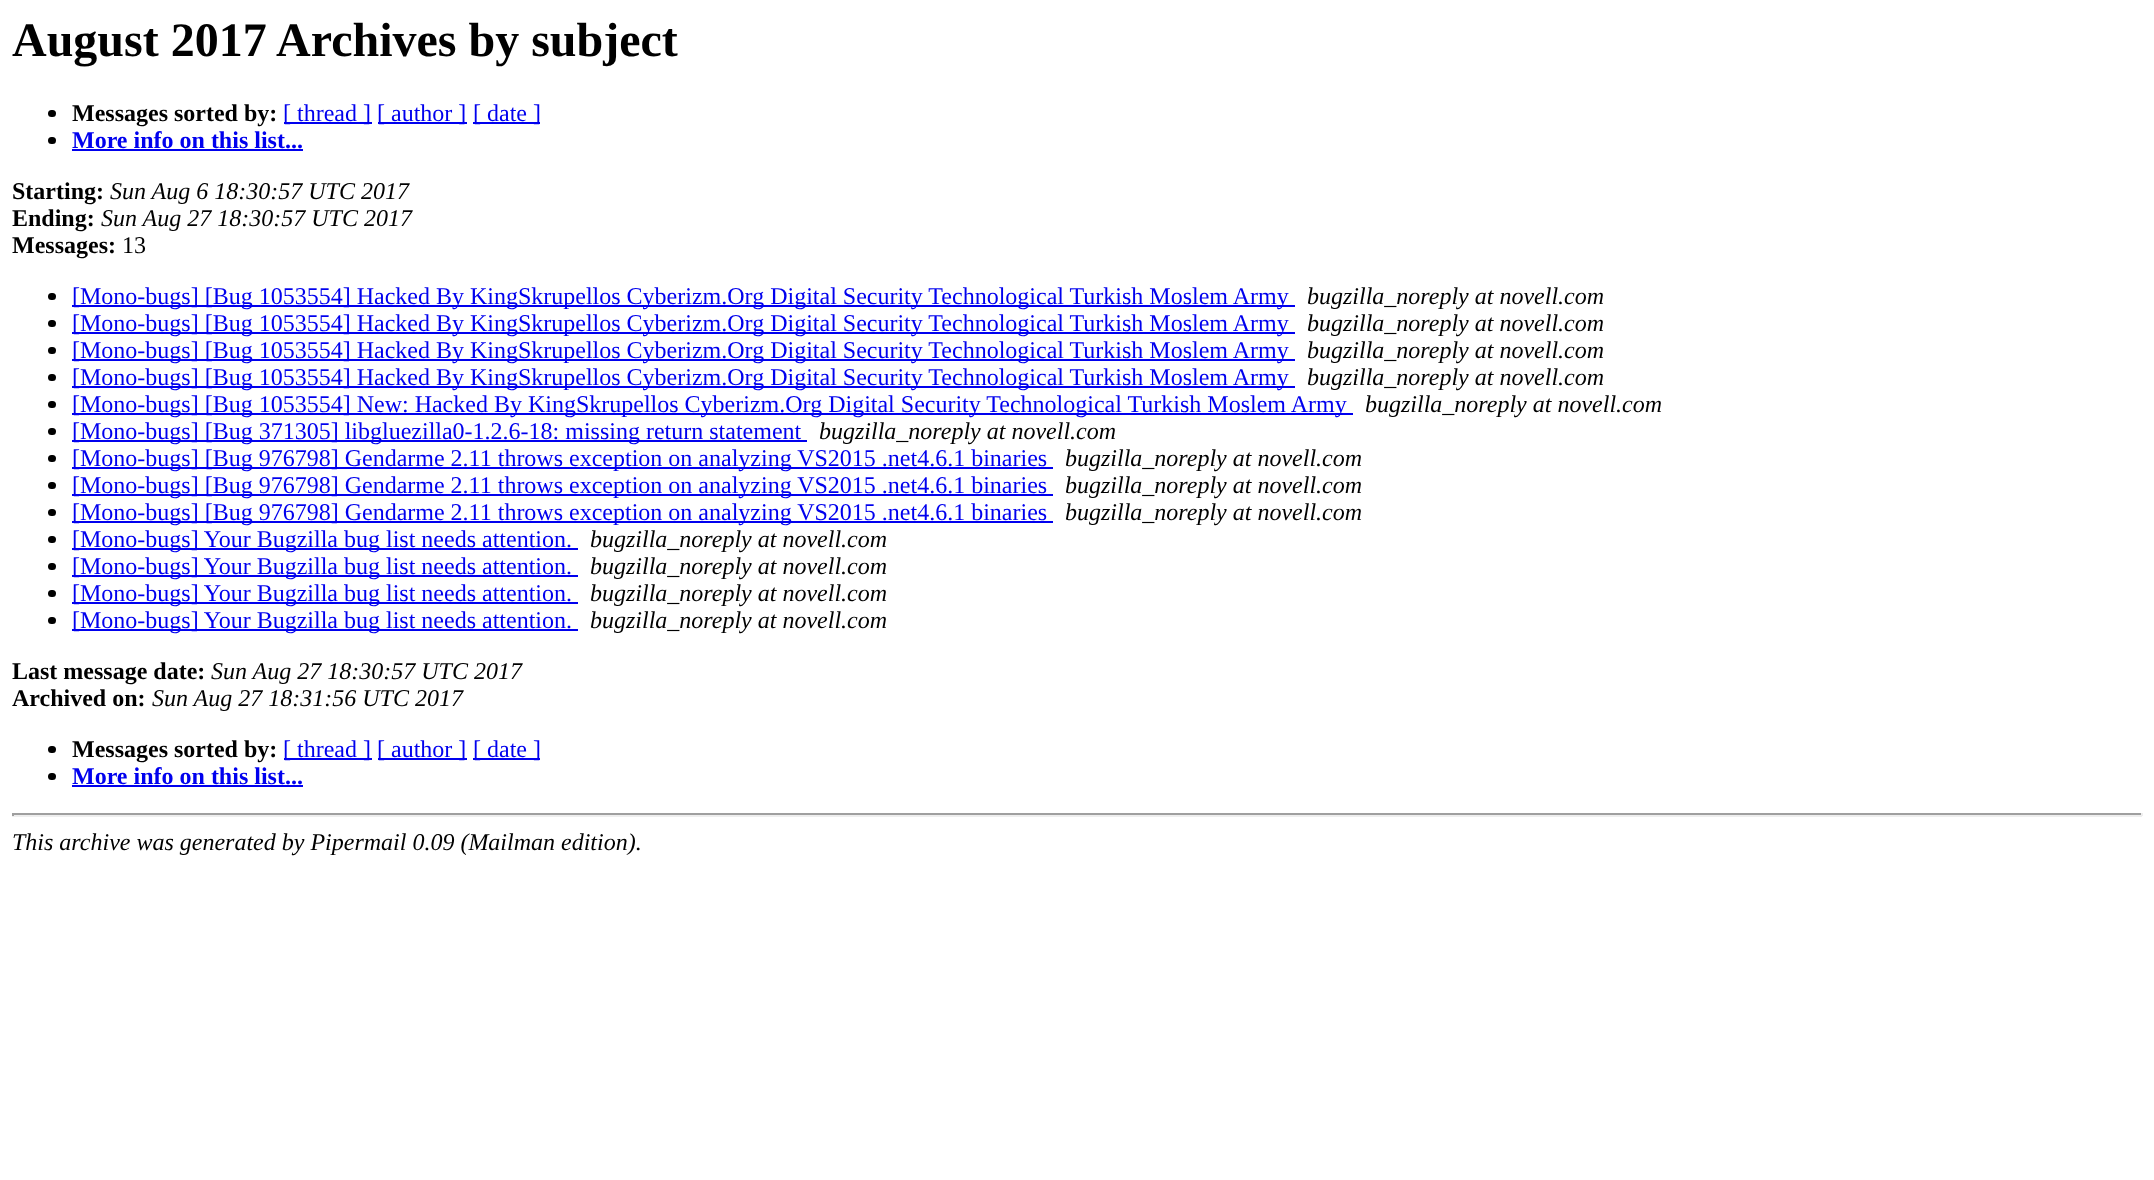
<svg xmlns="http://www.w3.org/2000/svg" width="2154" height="1180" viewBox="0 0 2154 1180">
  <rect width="100%" height="100%" fill="rgb(255,255,255)"/>
  <text x="12" y="56" font-family="Liberation Serif" font-size="48" font-weight="bold" fill="rgb(0,0,0)">August 2017 Archives by subject</text>
  <rect x="48" y="110" width="8" height="7" rx="3.5" fill="rgb(0,0,0)"/>
  <text x="72" y="121" font-family="Liberation Serif" font-size="24" font-weight="bold" fill="rgb(0,0,0)">Messages sorted by:</text>
  <rect x="284" y="122" width="88" height="2" fill="rgb(0,0,238)"/>
  <text x="283" y="121" font-family="Liberation Serif" font-size="24" fill="rgb(0,0,238)">[ thread ]</text>
  <rect x="378" y="122" width="89" height="2" fill="rgb(0,0,238)"/>
  <text x="377" y="121" font-family="Liberation Serif" font-size="24" fill="rgb(0,0,238)">[ author ]</text>
  <rect x="473" y="122" width="67" height="2" fill="rgb(0,0,238)"/>
  <text x="473" y="121" font-family="Liberation Serif" font-size="24" fill="rgb(0,0,238)">[ date ]</text>
  <rect x="48" y="137" width="8" height="7" rx="3.5" fill="rgb(0,0,0)"/>
  <text x="72" y="148" font-family="Liberation Serif" font-size="24" font-weight="bold" fill="rgb(0,0,238)">More info on this list...</text>
  <rect x="72" y="149" width="231" height="2" fill="rgb(0,0,238)"/>
  <text x="12" y="199" font-family="Liberation Serif" font-size="24" font-weight="bold" fill="rgb(0,0,0)">Starting:</text>
  <text x="110" y="199" font-family="Liberation Serif" font-size="24" font-style="italic" fill="rgb(0,0,0)">Sun Aug 6 18:30:57 UTC 2017</text>
  <text x="12" y="226" font-family="Liberation Serif" font-size="24" font-weight="bold" fill="rgb(0,0,0)">Ending:</text>
  <text x="101" y="226" font-family="Liberation Serif" font-size="24" font-style="italic" fill="rgb(0,0,0)">Sun Aug 27 18:30:57 UTC 2017</text>
  <text x="12" y="253" font-family="Liberation Serif" font-size="24" font-weight="bold" fill="rgb(0,0,0)">Messages:</text>
  <text x="122" y="253" font-family="Liberation Serif" font-size="24" fill="rgb(0,0,0)">13</text>
  <rect x="48" y="293" width="8" height="7" rx="3.5" fill="rgb(0,0,0)"/>
  <rect x="72" y="305" width="1223" height="2" fill="rgb(0,0,238)"/>
  <text x="72" y="304" font-family="Liberation Serif" font-size="24" fill="rgb(0,0,238)">[Mono-bugs] [Bug 1053554] Hacked By KingSkrupellos Cyberizm.Org Digital Security Technological Turkish Moslem Army</text>
  <text x="1307" y="304" font-family="Liberation Serif" font-size="24" font-style="italic" fill="rgb(0,0,0)">bugzilla_noreply at novell.com</text>
  <rect x="48" y="320" width="8" height="7" rx="3.5" fill="rgb(0,0,0)"/>
  <rect x="72" y="332" width="1223" height="2" fill="rgb(0,0,238)"/>
  <text x="72" y="331" font-family="Liberation Serif" font-size="24" fill="rgb(0,0,238)">[Mono-bugs] [Bug 1053554] Hacked By KingSkrupellos Cyberizm.Org Digital Security Technological Turkish Moslem Army</text>
  <text x="1307" y="331" font-family="Liberation Serif" font-size="24" font-style="italic" fill="rgb(0,0,0)">bugzilla_noreply at novell.com</text>
  <rect x="48" y="347" width="8" height="7" rx="3.5" fill="rgb(0,0,0)"/>
  <rect x="72" y="359" width="1223" height="2" fill="rgb(0,0,238)"/>
  <text x="72" y="358" font-family="Liberation Serif" font-size="24" fill="rgb(0,0,238)">[Mono-bugs] [Bug 1053554] Hacked By KingSkrupellos Cyberizm.Org Digital Security Technological Turkish Moslem Army</text>
  <text x="1307" y="358" font-family="Liberation Serif" font-size="24" font-style="italic" fill="rgb(0,0,0)">bugzilla_noreply at novell.com</text>
  <rect x="48" y="374" width="8" height="7" rx="3.5" fill="rgb(0,0,0)"/>
  <rect x="72" y="386" width="1223" height="2" fill="rgb(0,0,238)"/>
  <text x="72" y="385" font-family="Liberation Serif" font-size="24" fill="rgb(0,0,238)">[Mono-bugs] [Bug 1053554] Hacked By KingSkrupellos Cyberizm.Org Digital Security Technological Turkish Moslem Army</text>
  <text x="1307" y="385" font-family="Liberation Serif" font-size="24" font-style="italic" fill="rgb(0,0,0)">bugzilla_noreply at novell.com</text>
  <rect x="48" y="401" width="8" height="7" rx="3.5" fill="rgb(0,0,0)"/>
  <rect x="72" y="413" width="1281" height="2" fill="rgb(0,0,238)"/>
  <text x="72" y="412" font-family="Liberation Serif" font-size="24" fill="rgb(0,0,238)">[Mono-bugs] [Bug 1053554] New: Hacked By KingSkrupellos Cyberizm.Org Digital Security Technological Turkish Moslem Army</text>
  <text x="1365" y="412" font-family="Liberation Serif" font-size="24" font-style="italic" fill="rgb(0,0,0)">bugzilla_noreply at novell.com</text>
  <rect x="48" y="428" width="8" height="7" rx="3.5" fill="rgb(0,0,0)"/>
  <rect x="72" y="440" width="735" height="2" fill="rgb(0,0,238)"/>
  <text x="72" y="439" font-family="Liberation Serif" font-size="24" fill="rgb(0,0,238)">[Mono-bugs] [Bug 371305] libgluezilla0-1.2.6-18: missing return statement</text>
  <text x="819" y="439" font-family="Liberation Serif" font-size="24" font-style="italic" fill="rgb(0,0,0)">bugzilla_noreply at novell.com</text>
  <rect x="48" y="455" width="8" height="7" rx="3.5" fill="rgb(0,0,0)"/>
  <rect x="72" y="467" width="981" height="2" fill="rgb(0,0,238)"/>
  <text x="72" y="466" font-family="Liberation Serif" font-size="24" fill="rgb(0,0,238)">[Mono-bugs] [Bug 976798] Gendarme 2.11 throws exception on analyzing VS2015 .net4.6.1 binaries</text>
  <text x="1065" y="466" font-family="Liberation Serif" font-size="24" font-style="italic" fill="rgb(0,0,0)">bugzilla_noreply at novell.com</text>
  <rect x="48" y="482" width="8" height="7" rx="3.5" fill="rgb(0,0,0)"/>
  <rect x="72" y="494" width="981" height="2" fill="rgb(0,0,238)"/>
  <text x="72" y="493" font-family="Liberation Serif" font-size="24" fill="rgb(0,0,238)">[Mono-bugs] [Bug 976798] Gendarme 2.11 throws exception on analyzing VS2015 .net4.6.1 binaries</text>
  <text x="1065" y="493" font-family="Liberation Serif" font-size="24" font-style="italic" fill="rgb(0,0,0)">bugzilla_noreply at novell.com</text>
  <rect x="48" y="509" width="8" height="7" rx="3.5" fill="rgb(0,0,0)"/>
  <rect x="72" y="521" width="981" height="2" fill="rgb(0,0,238)"/>
  <text x="72" y="520" font-family="Liberation Serif" font-size="24" fill="rgb(0,0,238)">[Mono-bugs] [Bug 976798] Gendarme 2.11 throws exception on analyzing VS2015 .net4.6.1 binaries</text>
  <text x="1065" y="520" font-family="Liberation Serif" font-size="24" font-style="italic" fill="rgb(0,0,0)">bugzilla_noreply at novell.com</text>
  <rect x="48" y="536" width="8" height="7" rx="3.5" fill="rgb(0,0,0)"/>
  <rect x="72" y="548" width="506" height="2" fill="rgb(0,0,238)"/>
  <text x="72" y="547" font-family="Liberation Serif" font-size="24" fill="rgb(0,0,238)">[Mono-bugs] Your Bugzilla bug list needs attention.</text>
  <text x="590" y="547" font-family="Liberation Serif" font-size="24" font-style="italic" fill="rgb(0,0,0)">bugzilla_noreply at novell.com</text>
  <rect x="48" y="563" width="8" height="7" rx="3.5" fill="rgb(0,0,0)"/>
  <rect x="72" y="575" width="506" height="2" fill="rgb(0,0,238)"/>
  <text x="72" y="574" font-family="Liberation Serif" font-size="24" fill="rgb(0,0,238)">[Mono-bugs] Your Bugzilla bug list needs attention.</text>
  <text x="590" y="574" font-family="Liberation Serif" font-size="24" font-style="italic" fill="rgb(0,0,0)">bugzilla_noreply at novell.com</text>
  <rect x="48" y="590" width="8" height="7" rx="3.5" fill="rgb(0,0,0)"/>
  <rect x="72" y="602" width="506" height="2" fill="rgb(0,0,238)"/>
  <text x="72" y="601" font-family="Liberation Serif" font-size="24" fill="rgb(0,0,238)">[Mono-bugs] Your Bugzilla bug list needs attention.</text>
  <text x="590" y="601" font-family="Liberation Serif" font-size="24" font-style="italic" fill="rgb(0,0,0)">bugzilla_noreply at novell.com</text>
  <rect x="48" y="617" width="8" height="7" rx="3.5" fill="rgb(0,0,0)"/>
  <rect x="72" y="629" width="506" height="2" fill="rgb(0,0,238)"/>
  <text x="72" y="628" font-family="Liberation Serif" font-size="24" fill="rgb(0,0,238)">[Mono-bugs] Your Bugzilla bug list needs attention.</text>
  <text x="590" y="628" font-family="Liberation Serif" font-size="24" font-style="italic" fill="rgb(0,0,0)">bugzilla_noreply at novell.com</text>
  <text x="12" y="679" font-family="Liberation Serif" font-size="24" font-weight="bold" fill="rgb(0,0,0)">Last message date:</text>
  <text x="211" y="679" font-family="Liberation Serif" font-size="24" font-style="italic" fill="rgb(0,0,0)">Sun Aug 27 18:30:57 UTC 2017</text>
  <text x="12" y="706" font-family="Liberation Serif" font-size="24" font-weight="bold" fill="rgb(0,0,0)">Archived on:</text>
  <text x="152" y="706" font-family="Liberation Serif" font-size="24" font-style="italic" fill="rgb(0,0,0)">Sun Aug 27 18:31:56 UTC 2017</text>
  <rect x="48" y="746" width="8" height="7" rx="3.5" fill="rgb(0,0,0)"/>
  <text x="72" y="757" font-family="Liberation Serif" font-size="24" font-weight="bold" fill="rgb(0,0,0)">Messages sorted by:</text>
  <rect x="284" y="758" width="88" height="2" fill="rgb(0,0,238)"/>
  <text x="283" y="757" font-family="Liberation Serif" font-size="24" fill="rgb(0,0,238)">[ thread ]</text>
  <rect x="378" y="758" width="89" height="2" fill="rgb(0,0,238)"/>
  <text x="377" y="757" font-family="Liberation Serif" font-size="24" fill="rgb(0,0,238)">[ author ]</text>
  <rect x="473" y="758" width="67" height="2" fill="rgb(0,0,238)"/>
  <text x="473" y="757" font-family="Liberation Serif" font-size="24" fill="rgb(0,0,238)">[ date ]</text>
  <rect x="48" y="773" width="8" height="7" rx="3.5" fill="rgb(0,0,0)"/>
  <text x="72" y="784" font-family="Liberation Serif" font-size="24" font-weight="bold" fill="rgb(0,0,238)">More info on this list...</text>
  <rect x="72" y="785" width="231" height="2" fill="rgb(0,0,238)"/>
  <rect x="12" y="813" width="2130" height="2" fill="rgb(159,159,159)"/>
  <rect x="2141" y="813" width="2" height="3" fill="rgb(238,238,238)"/>
  <rect x="12" y="815" width="2130" height="2" fill="rgb(238,238,238)"/>
  <rect x="12" y="813" width="2" height="3" fill="rgb(159,159,159)"/>
  <text x="12" y="850" font-family="Liberation Serif" font-size="24" font-style="italic" fill="rgb(0,0,0)">This archive was generated by Pipermail 0.09 (Mailman edition).</text>
</svg>
